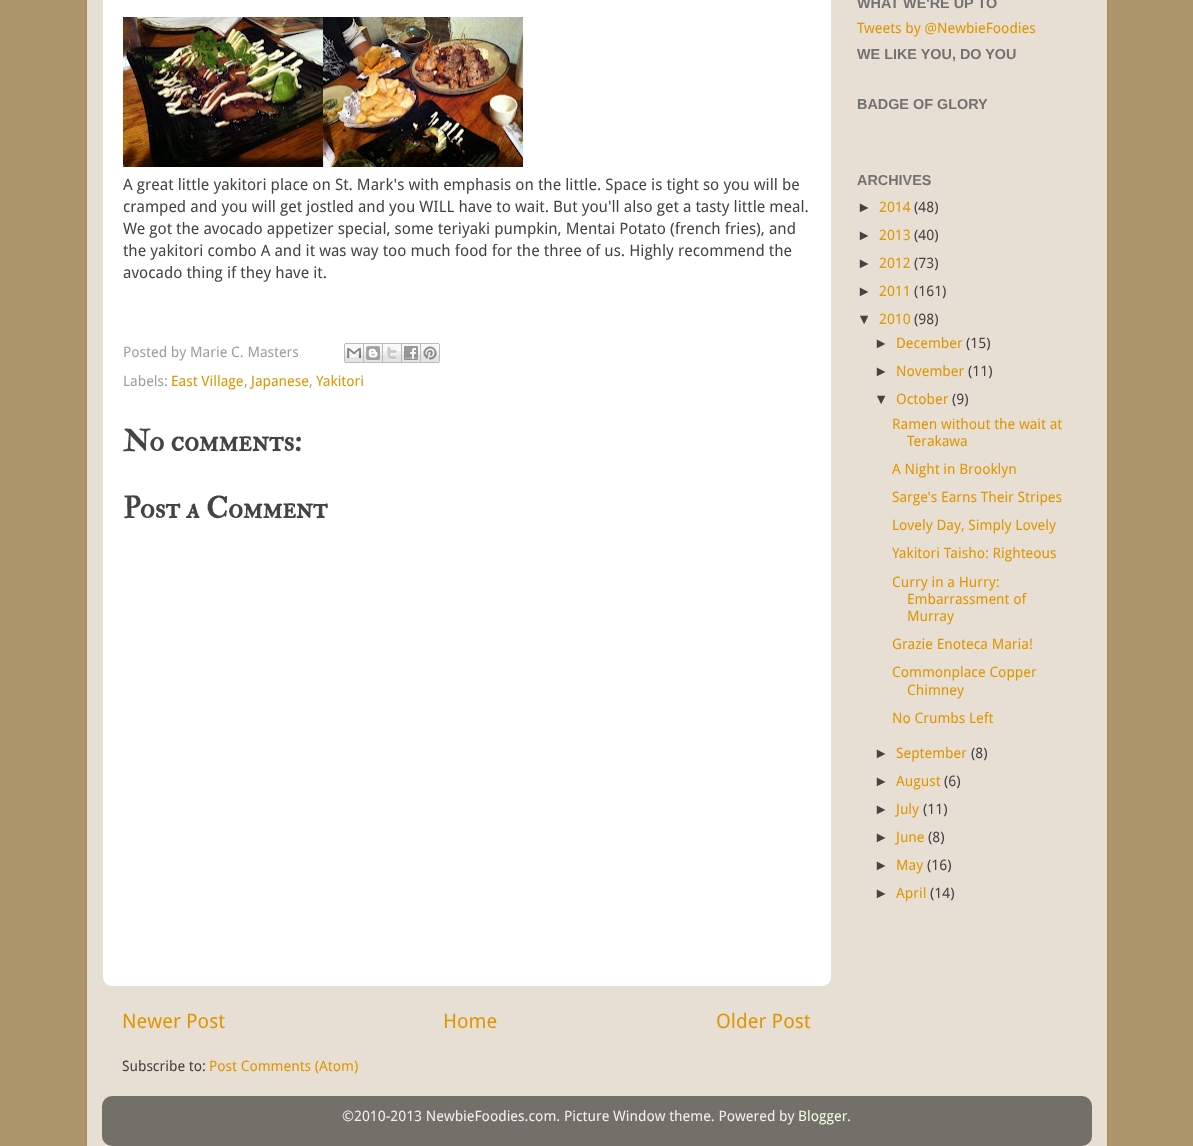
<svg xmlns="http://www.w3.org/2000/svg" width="1193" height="1146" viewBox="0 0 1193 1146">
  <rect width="100%" height="100%" fill="rgb(173,150,108)"/>
  <rect x="87" y="-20" width="1020" height="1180" rx="15" fill="rgba(0,0,0,0.15)" filter="blur(1.5px)"/>
  <rect x="87" y="0" width="1020" height="1146" fill="rgb(231,223,211)"/>
  <rect x="102.5" y="-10.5" width="729" height="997" rx="9.5" fill="rgb(255,255,255)" stroke="rgb(224,224,224)"/>
  <image x="123" y="17" width="200" height="150" href="pic1.png"/>
  <image x="323" y="17" width="200" height="150" href="pic2.png"/>
  <g font-family="Droid Sans" font-size="15.85" fill="rgb(68,68,68)">
    <text>
      <tspan x="123" y="190">A great little yakitori place on St. Mark's with emphasis on the little. Space is tight so you will be</tspan>
      <tspan x="123" y="212">cramped and you will get jostled and you WILL have to wait. But you'll also get a tasty little meal.</tspan>
      <tspan x="123" y="234">We got the avocado appetizer special, some teriyaki pumpkin, Mentai Potato (french fries), and</tspan>
      <tspan x="123" y="256">the yakitori combo A and it was way too much food for the three of us. Highly recommend the</tspan>
      <tspan x="123" y="278">avocado thing if they have it.</tspan>
    </text>
  </g>
  <text x="123" y="357" font-family="Droid Sans" font-size="14.4" fill="rgb(159,159,159)">Posted by Marie C. Masters</text>
  <image x="344" y="343" width="20" height="20" href="pic3.png"/>
  <image x="364" y="343" width="19" height="20" href="pic4.png"/>
  <image x="383" y="343" width="19" height="20" href="pic5.png"/>
  <image x="402" y="343" width="19" height="20" href="pic6.png"/>
  <image x="421" y="343" width="19" height="20" href="pic7.png"/>
  <text x="123" y="386" font-family="Droid Sans" font-size="14.4" fill="rgb(159,159,159)">Labels:</text>
  <text x="171" y="386" font-family="Droid Sans" font-size="14.4" fill="rgb(223,150,5)">East Village</text>
  <text x="244" y="386" font-family="Droid Sans" font-size="14.4" fill="rgb(159,159,159)">,</text>
  <text x="251" y="386" font-family="Droid Sans" font-size="14.4" fill="rgb(223,150,5)">Japanese</text>
  <text x="309" y="386" font-family="Droid Sans" font-size="14.4" fill="rgb(159,159,159)">,</text>
  <text x="316" y="386" font-family="Droid Sans" font-size="14.4" fill="rgb(223,150,5)">Yakitori</text>
  <g font-family="IM FELL Double Pica SC" font-size="30" font-weight="bold" fill="rgb(68,68,68)">
    <text x="123" y="451">No comments:</text>
    <text x="123" y="518">Post a Comment</text>
  </g>
  <g font-family="Droid Sans" font-size="20" fill="rgb(223,150,5)">
    <text x="122" y="1028">Newer Post</text>
    <text x="443" y="1028">Home</text>
    <text x="716" y="1028">Older Post</text>
  </g>
  <text x="122" y="1071" font-family="Droid Sans" font-size="14.4" fill="rgb(68,68,68)">Subscribe to:</text>
  <text x="209" y="1071" font-family="Droid Sans" font-size="14.4" fill="rgb(223,150,5)">Post Comments (Atom)</text>
  <text x="857" y="8" font-family="Liberation Sans" font-size="14.4" font-weight="bold" fill="rgb(114,114,114)">WHAT WE'RE UP TO</text>
  <text x="857" y="33" font-family="Droid Sans" font-size="14.4" fill="rgb(223,150,5)">Tweets by @NewbieFoodies</text>
  <g font-family="Liberation Sans" font-size="14.4" font-weight="bold" fill="rgb(114,114,114)">
    <text x="857" y="59">WE LIKE YOU, DO YOU</text>
    <text x="857" y="109">BADGE OF GLORY</text>
    <text x="857" y="185">ARCHIVES</text>
  </g>
  <text x="857" y="212" font-family="Liberation Sans" font-size="14.4" fill="rgb(68,68,68)">►</text>
  <text x="879" y="212" font-family="Droid Sans" font-size="14.4" fill="rgb(223,150,5)">2014</text>
  <text x="914" y="212" font-family="Droid Sans" font-size="14.4" fill="rgb(68,68,68)">(48)</text>
  <text x="857" y="240" font-family="Liberation Sans" font-size="14.4" fill="rgb(68,68,68)">►</text>
  <text x="879" y="240" font-family="Droid Sans" font-size="14.4" fill="rgb(223,150,5)">2013</text>
  <text x="914" y="240" font-family="Droid Sans" font-size="14.4" fill="rgb(68,68,68)">(40)</text>
  <text x="857" y="268" font-family="Liberation Sans" font-size="14.4" fill="rgb(68,68,68)">►</text>
  <text x="879" y="268" font-family="Droid Sans" font-size="14.4" fill="rgb(223,150,5)">2012</text>
  <text x="914" y="268" font-family="Droid Sans" font-size="14.4" fill="rgb(68,68,68)">(73)</text>
  <text x="857" y="296" font-family="Liberation Sans" font-size="14.4" fill="rgb(68,68,68)">►</text>
  <text x="879" y="296" font-family="Droid Sans" font-size="14.4" fill="rgb(223,150,5)">2011</text>
  <text x="914" y="296" font-family="Droid Sans" font-size="14.4" fill="rgb(68,68,68)">(161)</text>
  <text x="857" y="324" font-family="Liberation Sans" font-size="14.4" fill="rgb(68,68,68)">▼</text>
  <text x="879" y="324" font-family="Droid Sans" font-size="14.4" fill="rgb(223,150,5)">2010</text>
  <text x="914" y="324" font-family="Droid Sans" font-size="14.4" fill="rgb(68,68,68)">(98)</text>
  <text x="874" y="348" font-family="Liberation Sans" font-size="14.4" fill="rgb(68,68,68)">►</text>
  <text x="896" y="348" font-family="Droid Sans" font-size="14.4" fill="rgb(223,150,5)">December</text>
  <text x="966" y="348" font-family="Droid Sans" font-size="14.4" fill="rgb(68,68,68)">(15)</text>
  <text x="874" y="376" font-family="Liberation Sans" font-size="14.4" fill="rgb(68,68,68)">►</text>
  <text x="896" y="376" font-family="Droid Sans" font-size="14.4" fill="rgb(223,150,5)">November</text>
  <text x="968" y="376" font-family="Droid Sans" font-size="14.4" fill="rgb(68,68,68)">(11)</text>
  <text x="874" y="404" font-family="Liberation Sans" font-size="14.4" fill="rgb(68,68,68)">▼</text>
  <text x="896" y="404" font-family="Droid Sans" font-size="14.4" fill="rgb(223,150,5)">October</text>
  <text x="952" y="404" font-family="Droid Sans" font-size="14.4" fill="rgb(68,68,68)">(9)</text>
  <g font-family="Droid Sans" font-size="14.4" fill="rgb(223,150,5)">
    <text x="892" y="429">Ramen without the wait at</text>
    <text x="907" y="446">Terakawa</text>
    <text>
      <tspan x="892" y="474">A Night in Brooklyn</tspan>
      <tspan x="892" y="502">Sarge's Earns Their Stripes</tspan>
      <tspan x="892" y="530">Lovely Day, Simply Lovely</tspan>
      <tspan x="892" y="558">Yakitori Taisho: Righteous</tspan>
    </text>
    <text x="892" y="587">Curry in a Hurry:</text>
    <text>
      <tspan x="907" y="604">Embarrassment of</tspan>
      <tspan x="907" y="621">Murray</tspan>
    </text>
    <text>
      <tspan x="892" y="649">Grazie Enoteca Maria!</tspan>
      <tspan x="892" y="677">Commonplace Copper</tspan>
    </text>
    <text x="907" y="695">Chimney</text>
    <text x="892" y="723">No Crumbs Left</text>
  </g>
  <text x="874" y="758" font-family="Liberation Sans" font-size="14.4" fill="rgb(68,68,68)">►</text>
  <text x="896" y="758" font-family="Droid Sans" font-size="14.4" fill="rgb(223,150,5)">September</text>
  <text x="971" y="758" font-family="Droid Sans" font-size="14.4" fill="rgb(68,68,68)">(8)</text>
  <text x="874" y="786" font-family="Liberation Sans" font-size="14.4" fill="rgb(68,68,68)">►</text>
  <text x="896" y="786" font-family="Droid Sans" font-size="14.4" fill="rgb(223,150,5)">August</text>
  <text x="944" y="786" font-family="Droid Sans" font-size="14.4" fill="rgb(68,68,68)">(6)</text>
  <text x="874" y="814" font-family="Liberation Sans" font-size="14.4" fill="rgb(68,68,68)">►</text>
  <text x="896" y="814" font-family="Droid Sans" font-size="14.4" fill="rgb(223,150,5)">July</text>
  <text x="923" y="814" font-family="Droid Sans" font-size="14.4" fill="rgb(68,68,68)">(11)</text>
  <text x="874" y="842" font-family="Liberation Sans" font-size="14.4" fill="rgb(68,68,68)">►</text>
  <text x="896" y="842" font-family="Droid Sans" font-size="14.4" fill="rgb(223,150,5)">June</text>
  <text x="928" y="842" font-family="Droid Sans" font-size="14.4" fill="rgb(68,68,68)">(8)</text>
  <text x="874" y="870" font-family="Liberation Sans" font-size="14.4" fill="rgb(68,68,68)">►</text>
  <text x="896" y="870" font-family="Droid Sans" font-size="14.4" fill="rgb(223,150,5)">May</text>
  <text x="927" y="870" font-family="Droid Sans" font-size="14.4" fill="rgb(68,68,68)">(16)</text>
  <text x="874" y="898" font-family="Liberation Sans" font-size="14.4" fill="rgb(68,68,68)">►</text>
  <text x="896" y="898" font-family="Droid Sans" font-size="14.4" fill="rgb(223,150,5)">April</text>
  <text x="930" y="898" font-family="Droid Sans" font-size="14.4" fill="rgb(68,68,68)">(14)</text>
  <image x="102" y="1096" width="990" height="50" href="pic8.png"/>
  <text x="342" y="1121" font-family="Droid Sans" font-size="14.4" fill="rgb(240,240,240)">©2010-2013 NewbieFoodies.com. Picture Window theme. Powered by</text>
  <text x="798" y="1121" font-family="Droid Sans" font-size="14.4" fill="rgb(240,255,226)">Blogger</text>
  <text x="847" y="1121" font-family="Droid Sans" font-size="14.4" fill="rgb(240,240,240)">.</text>
</svg>
